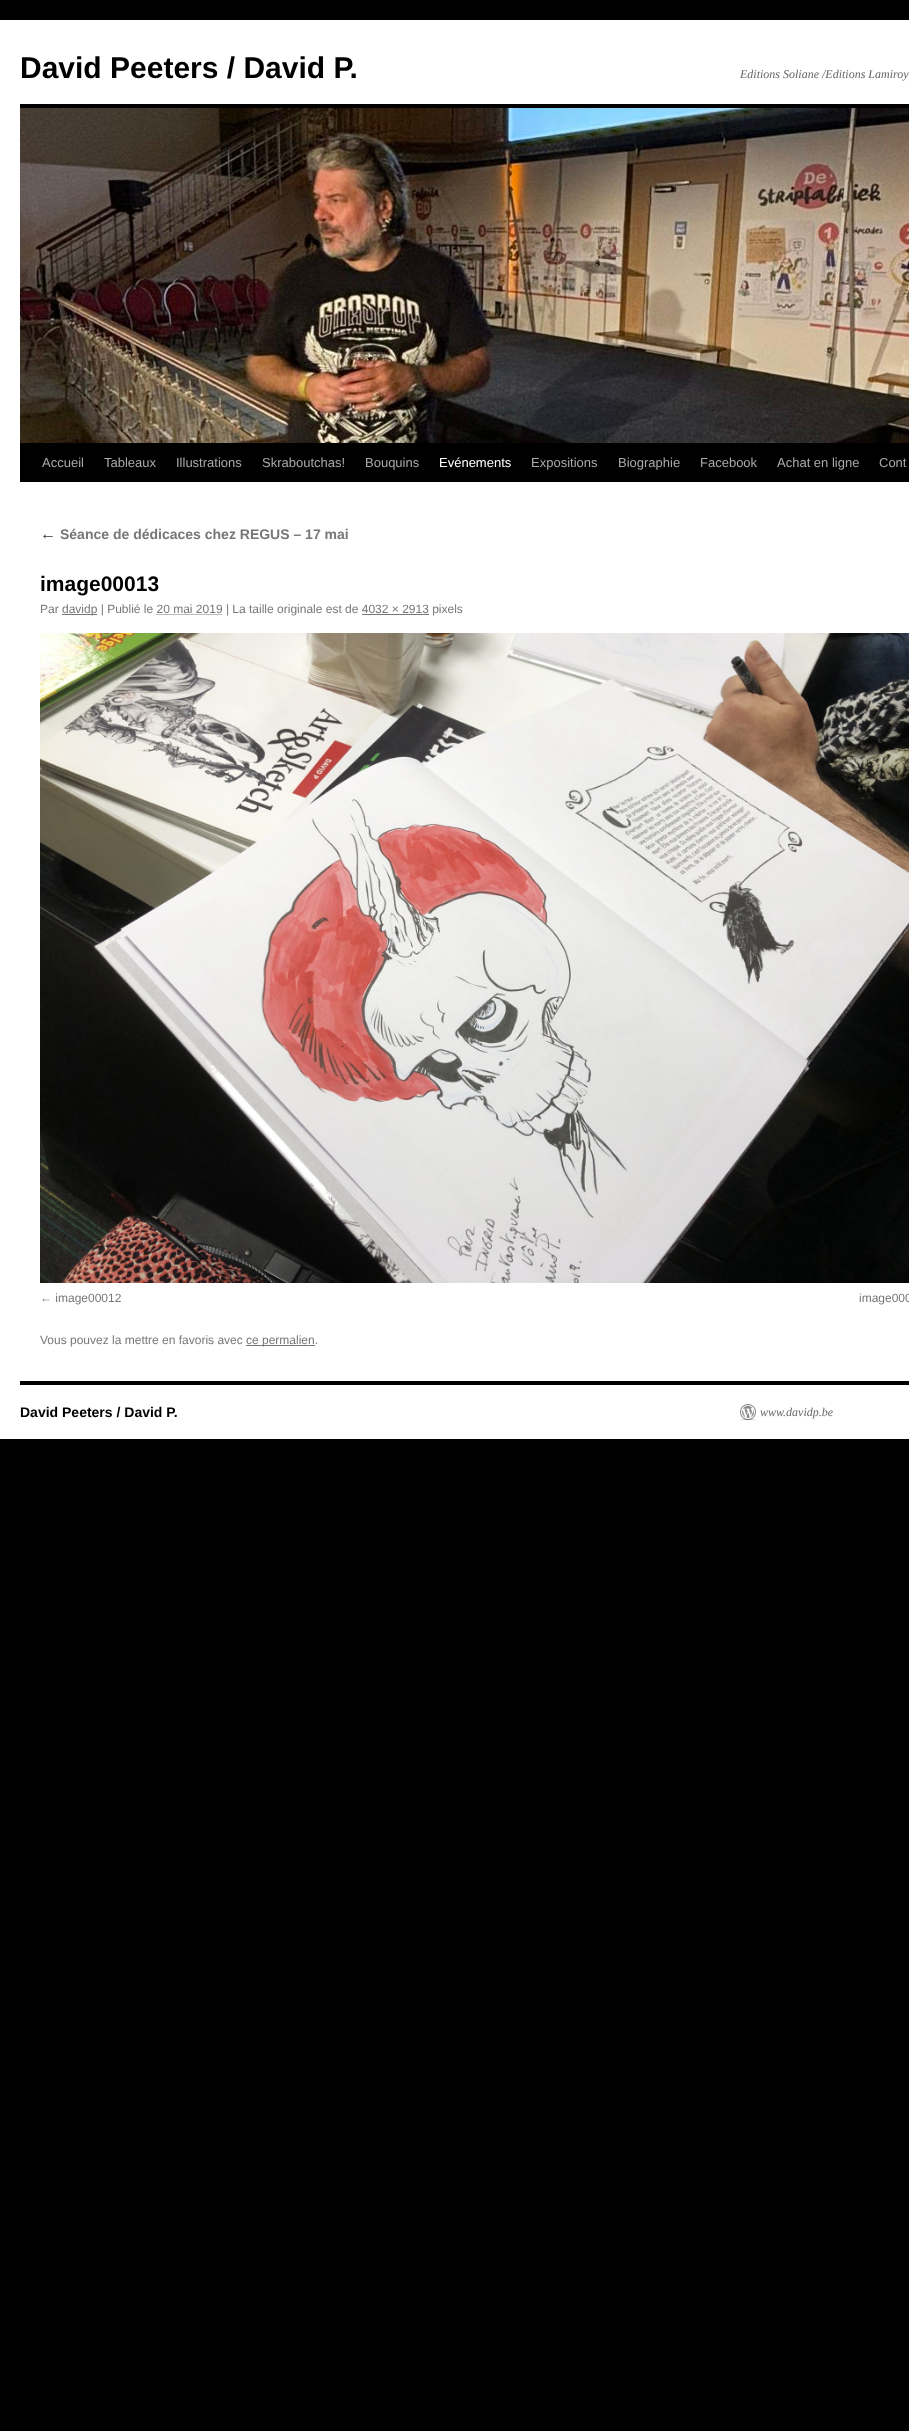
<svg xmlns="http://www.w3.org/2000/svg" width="909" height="2431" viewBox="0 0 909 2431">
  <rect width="100%" height="100%" fill="rgb(0,0,0)"/>
  <rect x="0" y="20" width="909" height="1419" fill="rgb(255,255,255)"/>
  <text x="20" y="78" font-family="Liberation Sans" font-size="30" font-weight="bold" fill="rgb(0,0,0)">David Peeters / David P.</text>
  <text x="740" y="78" font-family="Liberation Serif" font-size="12" font-style="italic" fill="rgb(102,102,102)">Editions Soliane /Editions Lamiroy</text>
  <rect x="20" y="104" width="889" height="4" fill="rgb(0,0,0)"/>
  <rect x="20" y="443" width="889" height="39" fill="rgb(0,0,0)"/>
  <image x="20" y="108" width="889" height="335" href="pic1.png"/>
  <g font-family="Liberation Sans" font-size="13" fill="rgb(170,170,170)">
    <text x="42" y="467">Accueil</text>
    <text x="104" y="467">Tableaux</text>
    <text x="176" y="467">Illustrations</text>
    <text x="262" y="467">Skraboutchas!</text>
    <text x="365" y="467">Bouquins</text>
  </g>
  <text x="439" y="467" font-family="Liberation Sans" font-size="13" fill="rgb(255,255,255)">Evénements</text>
  <g font-family="Liberation Sans" font-size="13" fill="rgb(170,170,170)">
    <text x="531" y="467">Expositions</text>
    <text x="618" y="467">Biographie</text>
    <text x="700" y="467">Facebook</text>
    <text x="777" y="467">Achat en ligne</text>
    <text x="879" y="467">Cont</text>
  </g>
  <text x="40" y="539" font-family="Liberation Serif" font-size="16" font-style="italic" fill="rgb(51,51,51)">←</text>
  <text x="60" y="539" font-family="Liberation Sans" font-size="14" font-weight="bold" fill="rgb(119,119,119)">Séance de dédicaces chez REGUS – 17 mai</text>
  <text x="40" y="591" font-family="Liberation Sans" font-size="21" font-weight="bold" fill="rgb(0,0,0)">image00013</text>
  <text x="40" y="613" font-family="Liberation Sans" font-size="12" fill="rgb(119,119,119)">Par</text>
  <rect x="62" y="614" width="35" height="1" fill="rgb(119,119,119)"/>
  <text x="62" y="613" font-family="Liberation Sans" font-size="12" fill="rgb(119,119,119)">davidp | Publié le 20 mai 2019 | La taille originale est de 4032 × 2913 pixels</text>
  <path d="M156.5 614.5H222.5" fill="none" stroke="rgb(119,119,119)" stroke-dasharray="1 1"/>
  <rect x="362" y="614" width="67" height="1" fill="rgb(119,119,119)"/>
  <image x="40" y="633" width="869" height="650" href="pic2.png"/>
  <g font-family="Liberation Sans" font-size="12" fill="rgb(119,119,119)">
    <text x="40" y="1302">← image00012</text>
    <text x="859" y="1302">image000</text>
    <text x="40" y="1344">Vous pouvez la mettre en favoris avec</text>
  </g>
  <rect x="246" y="1345" width="69" height="1" fill="rgb(119,119,119)"/>
  <text x="246" y="1344" font-family="Liberation Sans" font-size="12" fill="rgb(119,119,119)">ce permalien.</text>
  <rect x="20" y="1381" width="889" height="4" fill="rgb(0,0,0)"/>
  <text x="20" y="1417" font-family="Liberation Sans" font-size="14" font-weight="bold" fill="rgb(0,0,0)">David Peeters / David P.</text>
  <image x="740" y="1404" width="16" height="16" href="pic3.png"/>
  <text x="760" y="1416" font-family="Liberation Serif" font-size="12" font-style="italic" fill="rgb(102,102,102)">www.davidp.be</text>
</svg>
